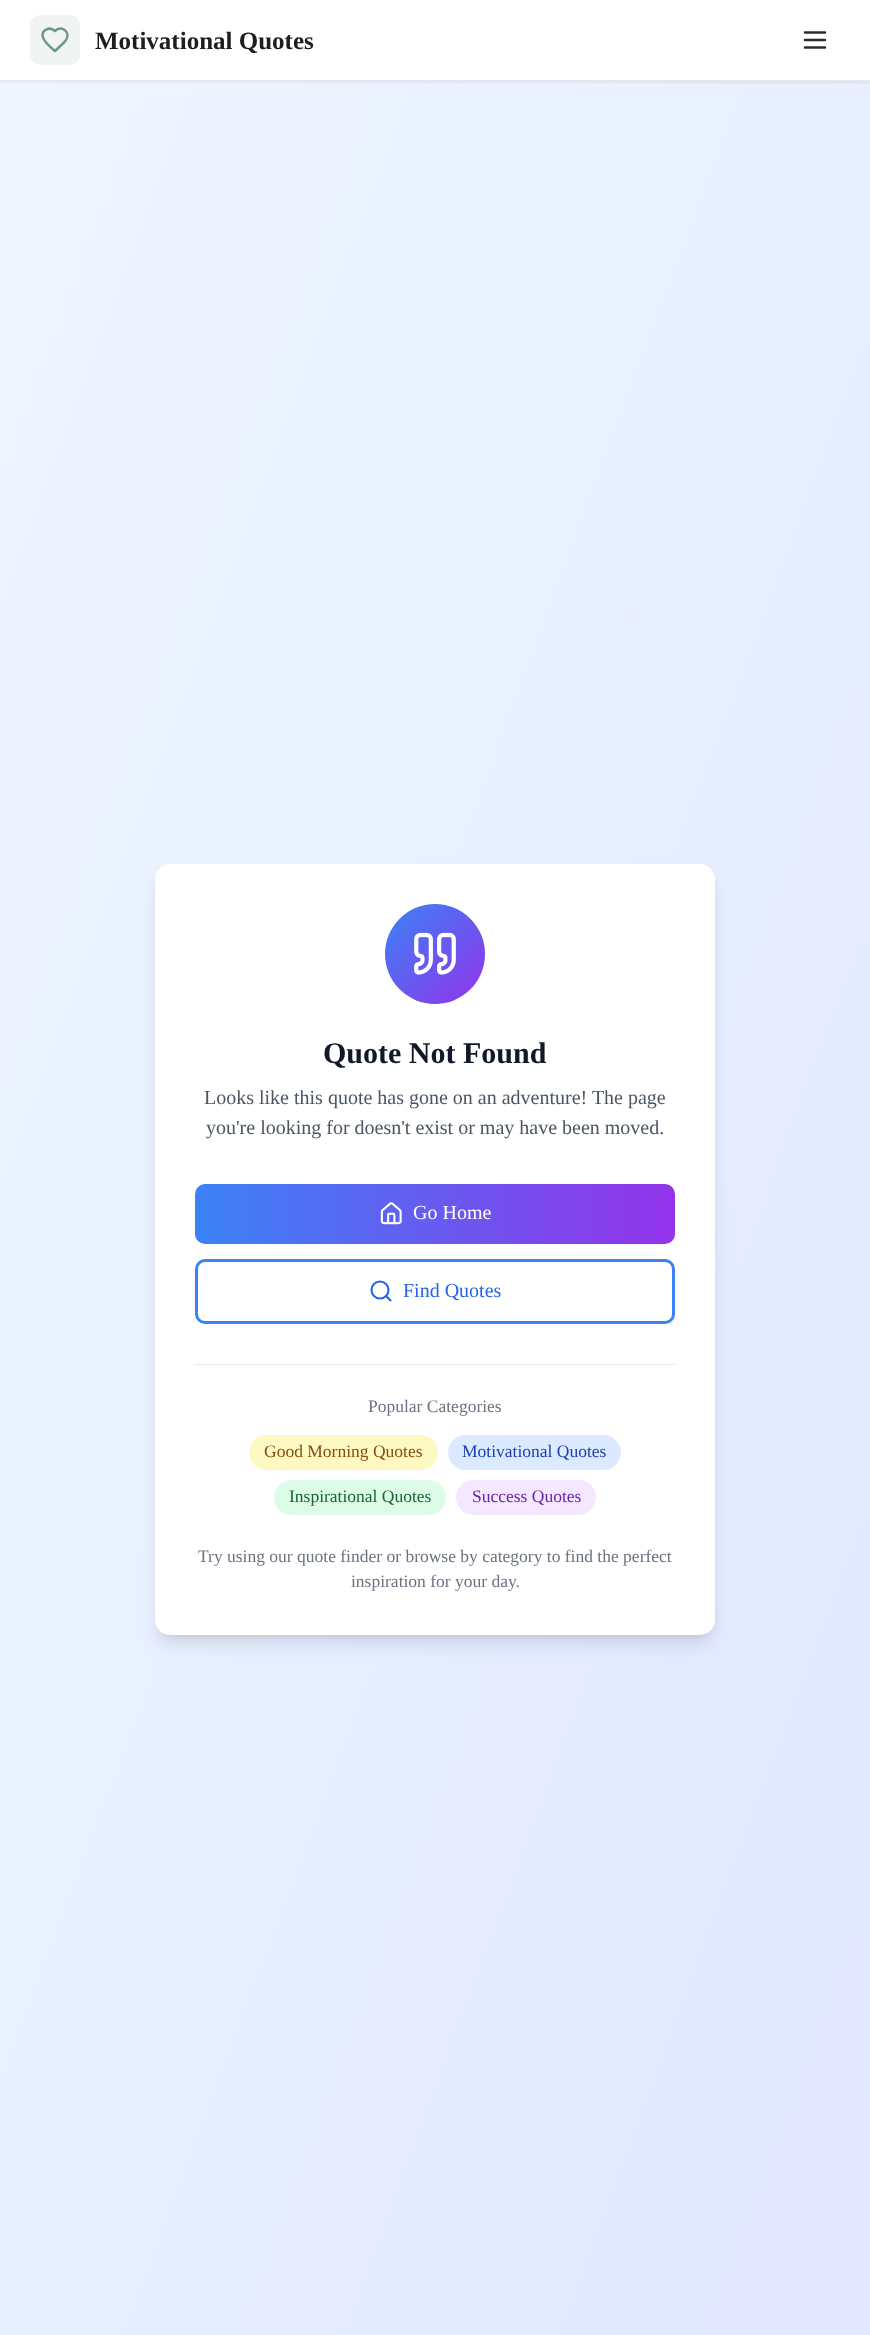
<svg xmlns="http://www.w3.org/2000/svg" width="870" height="2335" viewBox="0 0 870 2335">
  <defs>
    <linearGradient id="g1" gradientUnits="userSpaceOnUse" x1="-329" y1="964" x2="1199" y2="1533"><stop offset="0" stop-color="rgb(239,246,255)"/><stop offset="1" stop-color="rgb(224,231,255)"/></linearGradient>
    <linearGradient id="g2" gradientUnits="userSpaceOnUse" x1="385" y1="904" x2="485" y2="1004"><stop offset="0" stop-color="rgb(59,130,246)"/><stop offset="1" stop-color="rgb(147,51,234)"/></linearGradient>
    <linearGradient id="g3" gradientUnits="userSpaceOnUse" x1="195" y1="1214" x2="675" y2="1214"><stop offset="0" stop-color="rgb(59,130,246)"/><stop offset="1" stop-color="rgb(147,51,234)"/></linearGradient>
  </defs>
  <rect width="100%" height="100%" fill="rgb(255,255,255)"/>
  <rect x="0" y="81" width="870" height="2254" fill="url(#g1)"/>
  <rect x="0" y="1" width="870" height="82" fill="rgba(0,0,0,0.05)" filter="blur(1px)"/>
  <rect x="0" y="0" width="870" height="80" fill="rgb(255,255,255)"/>
  <rect x="0" y="80" width="870" height="1" fill="rgb(229,231,235)"/>
  <rect x="30" y="15" width="50" height="50" rx="10" fill="rgb(240,245,243)"/>
  <path d="M64 42.5C73 33.5 62 24 55 31C49.5 26 40.5 30 43 37.5C44 41.5 52 48.5 55 51Z" fill="none" stroke="rgb(109,152,134)" stroke-width="2.5" stroke-linecap="round" stroke-linejoin="round"/>
  <text x="95" y="49" font-family="Liberation Serif" font-size="25" font-weight="bold" fill="rgb(30,30,30)">Motivational Quotes</text>
  <path d="M805 40H825M805 32.5H825M805 47.5H825" fill="none" stroke="rgb(44,44,44)" stroke-width="2.5" stroke-linecap="round" stroke-linejoin="round"/>
  <rect x="160" y="874" width="550" height="761" rx="10" fill="rgba(0,0,0,0.1)" filter="blur(4px)"/>
  <rect x="159" y="880" width="552" height="764" rx="11" fill="rgba(0,0,0,0.1)" filter="blur(9.5px)"/>
  <rect x="155" y="864" width="560" height="771" rx="15" fill="rgb(255,255,255)"/>
  <circle cx="435" cy="954" r="50" fill="url(#g2)"/>
  <image x="414" y="932" width="42" height="43" href="pic1.png"/>
  <text x="323" y="1063" font-family="Liberation Serif" font-size="30" font-weight="bold" fill="rgb(17,24,39)">Quote Not Found</text>
  <g font-family="Liberation Serif" font-size="20" fill="rgb(75,85,99)">
    <text x="204" y="1104">Looks like this quote has gone on an adventure! The page</text>
    <text x="206" y="1134">you're looking for doesn't exist or may have been moved.</text>
  </g>
  <rect x="195" y="1184" width="480" height="60" rx="10" fill="url(#g3)"/>
  <image x="380" y="1202" width="22" height="23" href="pic2.png"/>
  <text x="413" y="1219" font-family="Liberation Serif" font-size="20" fill="rgb(255,255,255)">Go Home</text>
  <rect x="196.5" y="1260.5" width="477" height="62" rx="8.5" fill="none" stroke="rgb(59,130,246)" stroke-width="3"/>
  <circle cx="380" cy="1290" r="8.5" fill="none" stroke="rgb(37,99,235)" stroke-width="2.1"/>
  <path d="M390.5 1300.5L386 1296" fill="none" stroke="rgb(37,99,235)" stroke-width="2.1" stroke-linecap="round" stroke-linejoin="round"/>
  <text x="403" y="1297" font-family="Liberation Serif" font-size="20" fill="rgb(37,99,235)">Find Quotes</text>
  <rect x="195" y="1364" width="480" height="1" fill="rgb(229,231,235)"/>
  <text x="368" y="1412" font-family="Liberation Serif" font-size="17.5" fill="rgb(107,114,128)">Popular Categories</text>
  <rect x="249" y="1435" width="189" height="35" rx="17.5" fill="rgb(254,249,195)"/>
  <text x="264" y="1457" font-family="Liberation Serif" font-size="17.5" fill="rgb(133,77,14)">Good Morning Quotes</text>
  <rect x="448" y="1435" width="173" height="35" rx="17.5" fill="rgb(219,234,254)"/>
  <text x="462" y="1457" font-family="Liberation Serif" font-size="17.5" fill="rgb(30,64,175)">Motivational Quotes</text>
  <rect x="274" y="1480" width="172" height="35" rx="17.5" fill="rgb(220,252,231)"/>
  <text x="289" y="1502" font-family="Liberation Serif" font-size="17.5" fill="rgb(22,101,52)">Inspirational Quotes</text>
  <rect x="456" y="1480" width="140" height="35" rx="17.5" fill="rgb(243,232,255)"/>
  <text x="472" y="1502" font-family="Liberation Serif" font-size="17.5" fill="rgb(107,33,168)">Success Quotes</text>
  <g font-family="Liberation Serif" font-size="17.5" fill="rgb(107,114,128)">
    <text x="198" y="1562">Try using our quote finder or browse by category to find the perfect</text>
    <text x="351" y="1587">inspiration for your day.</text>
  </g>
</svg>
